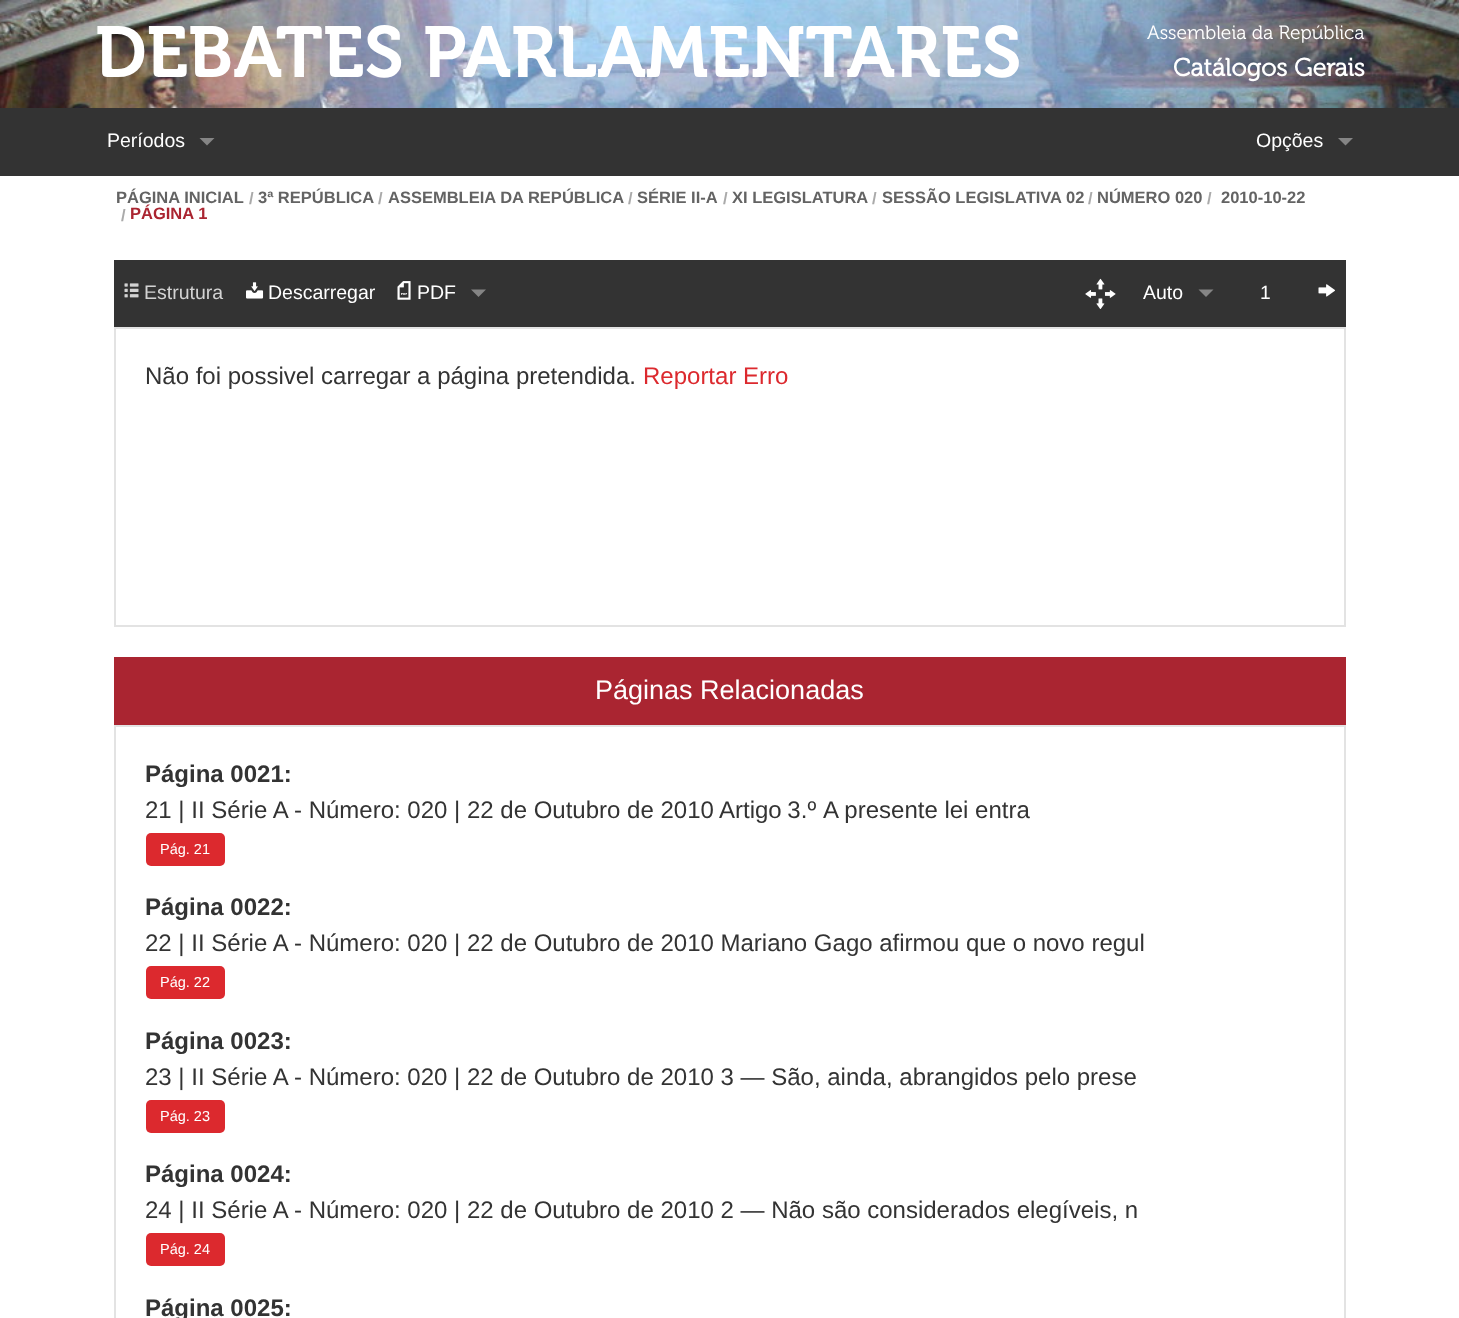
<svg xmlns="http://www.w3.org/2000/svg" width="1459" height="1318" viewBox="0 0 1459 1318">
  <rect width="100%" height="100%" fill="rgb(255,255,255)"/>
  <image x="0" y="0" width="1459" height="108" href="pic1.png"/>
  <text x="95" y="77" font-family="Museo" font-size="72" font-weight="600" fill="rgb(255,255,255)">DEBATES PARLAMENTARES</text>
  <text x="1147" y="39" font-family="Museo" font-size="19.25" font-weight="300" fill="rgb(255,255,255)">Assembleia da República</text>
  <text x="1173" y="76" font-family="Museo" font-size="25" font-weight="bold" fill="rgb(255,255,255)">Catálogos Gerais</text>
  <rect x="0" y="108" width="1459" height="68" fill="rgb(51,51,51)"/>
  <text x="107" y="147" font-family="Liberation Sans" font-size="19.5" fill="rgb(255,255,255)">Períodos</text>
  <path d="M199.5 138H214.5L207 145.5Z" fill="rgb(133,133,133)"/>
  <text x="1256" y="147" font-family="Liberation Sans" font-size="19.5" fill="rgb(255,255,255)">Opções</text>
  <path d="M1338 138H1353L1345.5 145.5Z" fill="rgb(133,133,133)"/>
  <text x="116" y="203" font-family="Liberation Sans" font-size="16.5" font-weight="bold" fill="rgb(99,99,99)">PÁGINA INICIAL</text>
  <text x="249" y="204" font-family="Liberation Sans" font-size="16.5" font-weight="bold" fill="rgb(170,170,170)">/</text>
  <text x="258" y="203" font-family="Liberation Sans" font-size="16.5" font-weight="bold" fill="rgb(99,99,99)">3ª REPÚBLICA</text>
  <text x="378" y="204" font-family="Liberation Sans" font-size="16.5" font-weight="bold" fill="rgb(170,170,170)">/</text>
  <text x="388" y="203" font-family="Liberation Sans" font-size="16.5" font-weight="bold" fill="rgb(99,99,99)">ASSEMBLEIA DA REPÚBLICA</text>
  <text x="628" y="204" font-family="Liberation Sans" font-size="16.5" font-weight="bold" fill="rgb(170,170,170)">/</text>
  <text x="637" y="203" font-family="Liberation Sans" font-size="16.5" font-weight="bold" fill="rgb(99,99,99)">SÉRIE II-A</text>
  <text x="723" y="204" font-family="Liberation Sans" font-size="16.5" font-weight="bold" fill="rgb(170,170,170)">/</text>
  <text x="732" y="203" font-family="Liberation Sans" font-size="16.5" font-weight="bold" fill="rgb(99,99,99)">XI LEGISLATURA</text>
  <text x="872" y="204" font-family="Liberation Sans" font-size="16.5" font-weight="bold" fill="rgb(170,170,170)">/</text>
  <text x="882" y="203" font-family="Liberation Sans" font-size="16.5" font-weight="bold" fill="rgb(99,99,99)">SESSÃO LEGISLATIVA 02</text>
  <text x="1088" y="204" font-family="Liberation Sans" font-size="16.5" font-weight="bold" fill="rgb(170,170,170)">/</text>
  <text x="1097" y="203" font-family="Liberation Sans" font-size="16.5" font-weight="bold" fill="rgb(99,99,99)">NÚMERO 020</text>
  <text x="1207" y="204" font-family="Liberation Sans" font-size="16.5" font-weight="bold" fill="rgb(170,170,170)">/</text>
  <text x="1221" y="203" font-family="Liberation Sans" font-size="16.5" font-weight="bold" fill="rgb(99,99,99)">2010-10-22</text>
  <text x="121" y="221" font-family="Liberation Sans" font-size="16.5" font-weight="bold" fill="rgb(170,170,170)">/</text>
  <text x="130" y="219" font-family="Liberation Sans" font-size="16.5" font-weight="bold" fill="rgb(170,37,49)">PÁGINA 1</text>
  <rect x="114" y="260" width="1232" height="67" fill="rgb(51,51,51)"/>
  <image x="124" y="283" width="15" height="15" href="pic2.png"/>
  <text x="144" y="299" font-family="Liberation Sans" font-size="19.5" fill="rgb(211,211,211)">Estrutura</text>
  <image x="246" y="282" width="18" height="17" href="pic3.png"/>
  <text x="268" y="299" font-family="Liberation Sans" font-size="19.5" fill="rgb(255,255,255)">Descarregar</text>
  <image x="397" y="281" width="14" height="19" href="pic4.png"/>
  <text x="417" y="299" font-family="Liberation Sans" font-size="19.5" fill="rgb(255,255,255)">PDF</text>
  <path d="M471 289.5H486L478.5 297Z" fill="rgb(133,133,133)"/>
  <image x="1085" y="278" width="31" height="31" href="pic5.png"/>
  <text x="1143" y="299" font-family="Liberation Sans" font-size="19.5" fill="rgb(255,255,255)">Auto</text>
  <path d="M1198.5 289.5H1213.5L1206 297Z" fill="rgb(133,133,133)"/>
  <text x="1260" y="299" font-family="Liberation Sans" font-size="19.25" fill="rgb(255,255,255)">1</text>
  <image x="1318" y="284" width="17" height="13" href="pic6.png"/>
  <rect x="115" y="328" width="1230" height="298" fill="none" stroke="rgb(227,227,227)" stroke-width="2"/>
  <text x="145" y="384" font-family="Liberation Sans" font-size="24" fill="rgb(51,51,51)">Não foi possivel carregar a página pretendida.</text>
  <text x="643" y="384" font-family="Liberation Sans" font-size="24" fill="rgb(220,41,46)">Reportar Erro</text>
  <rect x="114" y="657" width="1232" height="68" fill="rgb(170,37,49)"/>
  <text x="595" y="699" font-family="Liberation Sans" font-size="27" fill="rgb(255,255,255)">Páginas Relacionadas</text>
  <rect x="115" y="726" width="1230" height="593" fill="none" stroke="rgb(227,227,227)" stroke-width="2"/>
  <text x="145" y="782" font-family="Liberation Sans" font-size="24" font-weight="bold" fill="rgb(51,51,51)">Página 0021:</text>
  <g font-family="Liberation Sans" font-size="24" fill="rgb(51,51,51)">
    <text x="145" y="818">21 | II Série A - Número: 020 | 22 de Outubro de 2010</text>
    <text x="719" y="818" word-spacing="-1">Artigo 3.º</text>
    <text x="823" y="818">A presente lei entra</text>
  </g>
  <rect x="146" y="833" width="79" height="33" rx="5" fill="rgb(220,41,46)"/>
  <text x="160" y="854" font-family="Liberation Sans" font-size="14.5" fill="rgb(255,255,255)">Pág. 21</text>
  <text x="145" y="915" font-family="Liberation Sans" font-size="24" font-weight="bold" fill="rgb(51,51,51)">Página 0022:</text>
  <text x="145" y="951" font-family="Liberation Sans" font-size="24" fill="rgb(51,51,51)">22 | II Série A - Número: 020 | 22 de Outubro de 2010 Mariano Gago afirmou que o novo regul</text>
  <rect x="146" y="966" width="79" height="33" rx="5" fill="rgb(220,41,46)"/>
  <text x="160" y="987" font-family="Liberation Sans" font-size="14.5" fill="rgb(255,255,255)">Pág. 22</text>
  <text x="145" y="1049" font-family="Liberation Sans" font-size="24" font-weight="bold" fill="rgb(51,51,51)">Página 0023:</text>
  <text x="145" y="1085" font-family="Liberation Sans" font-size="24" fill="rgb(51,51,51)">23 | II Série A - Número: 020 | 22 de Outubro de 2010 3 — São, ainda, abrangidos pelo prese</text>
  <rect x="146" y="1100" width="79" height="33" rx="5" fill="rgb(220,41,46)"/>
  <text x="160" y="1121" font-family="Liberation Sans" font-size="14.5" fill="rgb(255,255,255)">Pág. 23</text>
  <text x="145" y="1182" font-family="Liberation Sans" font-size="24" font-weight="bold" fill="rgb(51,51,51)">Página 0024:</text>
  <text x="145" y="1218" font-family="Liberation Sans" font-size="24" fill="rgb(51,51,51)">24 | II Série A - Número: 020 | 22 de Outubro de 2010 2 — Não são considerados elegíveis, n</text>
  <rect x="146" y="1233" width="79" height="33" rx="5" fill="rgb(220,41,46)"/>
  <text x="160" y="1254" font-family="Liberation Sans" font-size="14.5" fill="rgb(255,255,255)">Pág. 24</text>
  <text x="145" y="1316" font-family="Liberation Sans" font-size="24" font-weight="bold" fill="rgb(51,51,51)">Página 0025:</text>
</svg>
